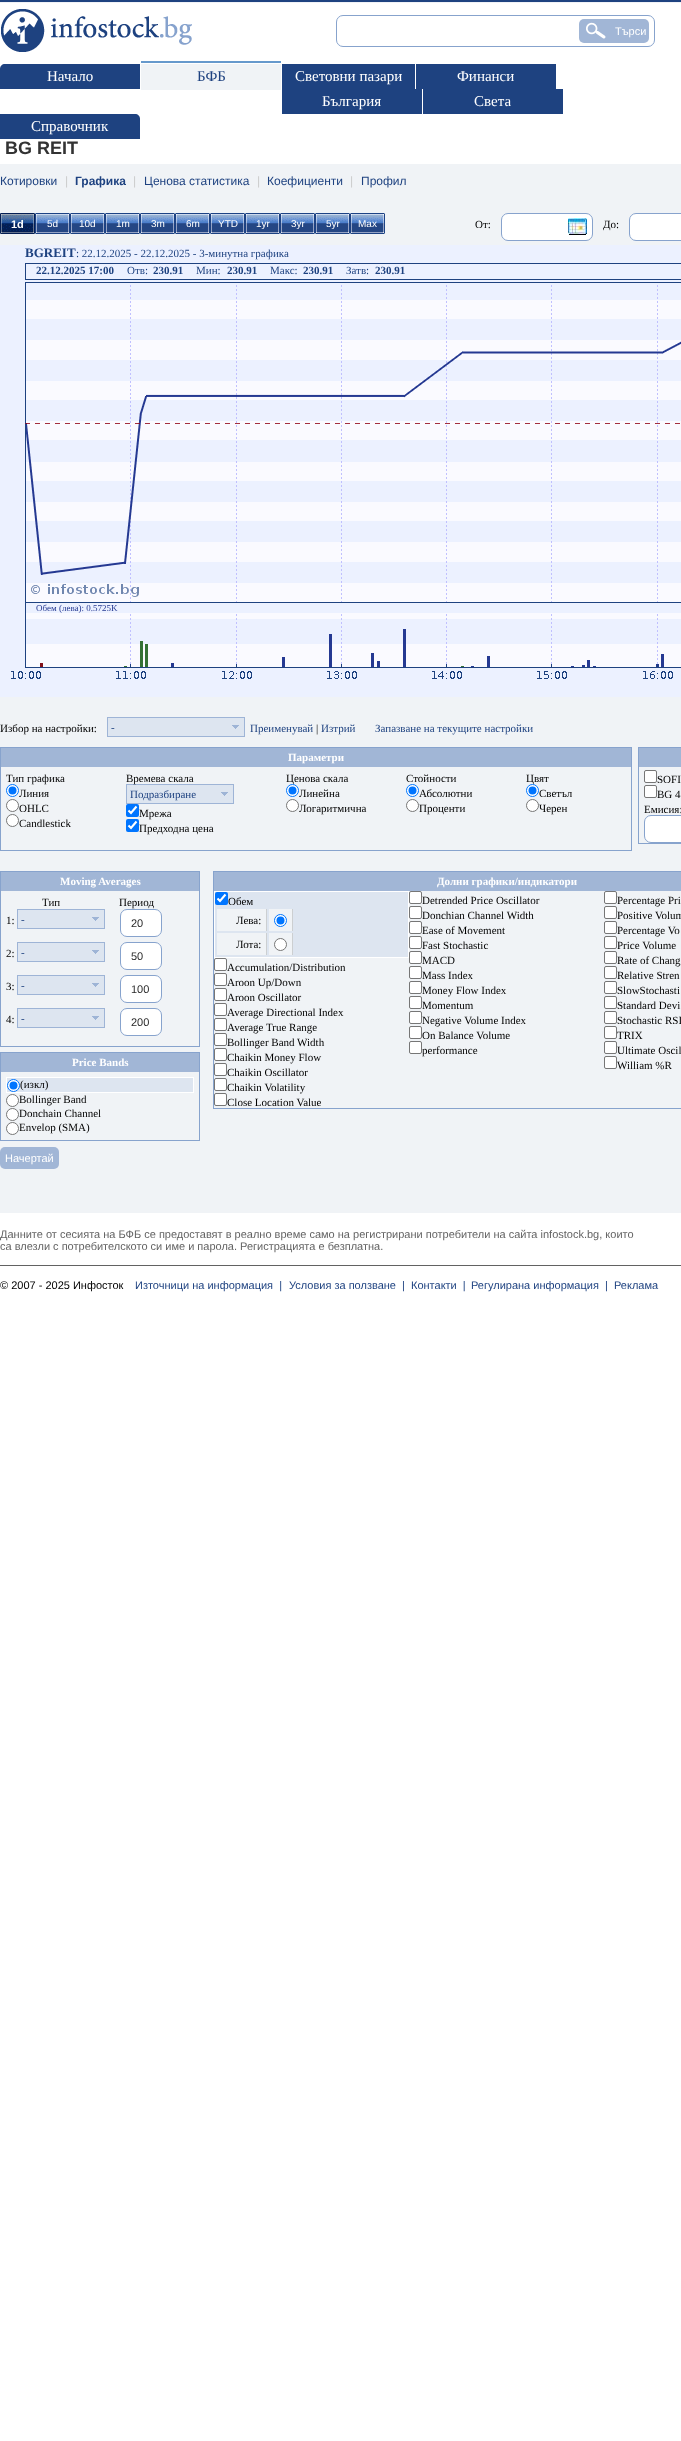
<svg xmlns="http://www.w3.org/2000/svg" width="681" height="2441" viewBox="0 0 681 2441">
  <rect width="100%" height="100%" fill="rgb(255,255,255)"/>
  <image x="0" y="0" width="681" height="64" href="pic1.png"/>
  <image x="1" y="9" width="191" height="43" href="pic2.png"/>
  <rect x="336.5" y="15.5" width="318" height="31" rx="6.5" fill="none" stroke="rgb(135,163,205)"/>
  <rect x="579" y="19" width="70" height="24" rx="5" fill="rgb(161,182,214)"/>
  <image x="586" y="22" width="20" height="17" href="pic3.png"/>
  <text x="615" y="35" font-family="Liberation Sans" font-size="11" fill="rgb(255,255,255)">Търси</text>
  <path d="M5 64H140V89H0V69C0 66 2 64 5 64Z" fill="rgb(30,66,128)"/>
  <text x="47" y="81" font-family="Liberation Serif" font-size="15" fill="rgb(255,255,255)">Начало</text>
  <rect x="141" y="61" width="140" height="2" fill="rgb(102,153,204)"/>
  <rect x="141" y="64" width="140" height="26" fill="rgb(240,243,246)"/>
  <text x="197" y="81" font-family="Liberation Serif" font-size="15" fill="rgb(30,66,128)">БФБ</text>
  <rect x="282" y="64" width="133" height="25" fill="rgb(30,66,128)"/>
  <text x="295" y="81" font-family="Liberation Serif" font-size="15" fill="rgb(255,255,255)">Световни пазари</text>
  <rect x="416" y="64" width="140" height="25" fill="rgb(30,66,128)"/>
  <text x="457" y="81" font-family="Liberation Serif" font-size="15" fill="rgb(255,255,255)">Финанси</text>
  <rect x="282" y="89" width="140" height="25" fill="rgb(30,66,128)"/>
  <text x="322" y="106" font-family="Liberation Serif" font-size="15" fill="rgb(255,255,255)">България</text>
  <rect x="423" y="89" width="140" height="25" fill="rgb(30,66,128)"/>
  <text x="474" y="106" font-family="Liberation Serif" font-size="15" fill="rgb(255,255,255)">Света</text>
  <path d="M0 114H135C138 114 140 116 140 119V139H0Z" fill="rgb(30,66,128)"/>
  <text x="31" y="131" font-family="Liberation Serif" font-size="15" fill="rgb(255,255,255)">Справочник</text>
  <rect x="0" y="164" width="681" height="1049" fill="rgb(240,243,246)"/>
  <text x="5" y="154" font-family="Liberation Sans" font-size="18" font-weight="bold" fill="rgb(51,51,51)">BG REIT</text>
  <text x="0" y="185" font-family="Liberation Sans" font-size="12" fill="rgb(30,66,128)">Котировки</text>
  <text x="65" y="185" font-family="Liberation Sans" font-size="12" fill="rgb(204,204,204)">|</text>
  <text x="75" y="185" font-family="Liberation Sans" font-size="12" font-weight="bold" fill="rgb(30,66,128)">Графика</text>
  <text x="133" y="185" font-family="Liberation Sans" font-size="12" fill="rgb(204,204,204)">|</text>
  <text x="144" y="185" font-family="Liberation Sans" font-size="12" fill="rgb(30,66,128)">Ценова статистика</text>
  <text x="257" y="185" font-family="Liberation Sans" font-size="12" fill="rgb(204,204,204)">|</text>
  <text x="267" y="185" font-family="Liberation Sans" font-size="12" fill="rgb(30,66,128)">Коефициенти</text>
  <text x="350" y="185" font-family="Liberation Sans" font-size="12" fill="rgb(204,204,204)">|</text>
  <text x="361" y="185" font-family="Liberation Sans" font-size="12" fill="rgb(30,66,128)">Профил</text>
  <image x="0" y="213" width="35" height="21" href="pic4.png"/>
  <text x="11" y="228" font-family="Liberation Sans" font-size="11" font-weight="bold" fill="rgb(255,255,255)">1d</text>
  <image x="35" y="213" width="35" height="21" href="pic5.png"/>
  <text x="47" y="227" font-family="Liberation Sans" font-size="10" fill="rgb(255,255,255)">5d</text>
  <image x="70" y="213" width="35" height="21" href="pic5.png"/>
  <text x="79" y="227" font-family="Liberation Sans" font-size="10" fill="rgb(255,255,255)">10d</text>
  <image x="105" y="213" width="35" height="21" href="pic5.png"/>
  <text x="116" y="227" font-family="Liberation Sans" font-size="10" fill="rgb(255,255,255)">1m</text>
  <image x="140" y="213" width="35" height="21" href="pic5.png"/>
  <text x="151" y="227" font-family="Liberation Sans" font-size="10" fill="rgb(255,255,255)">3m</text>
  <image x="175" y="213" width="35" height="21" href="pic5.png"/>
  <text x="186" y="227" font-family="Liberation Sans" font-size="10" fill="rgb(255,255,255)">6m</text>
  <image x="210" y="213" width="35" height="21" href="pic5.png"/>
  <text x="218" y="227" font-family="Liberation Sans" font-size="10" fill="rgb(255,255,255)">YTD</text>
  <image x="245" y="213" width="35" height="21" href="pic5.png"/>
  <text x="256" y="227" font-family="Liberation Sans" font-size="10" fill="rgb(255,255,255)">1yr</text>
  <image x="280" y="213" width="35" height="21" href="pic5.png"/>
  <text x="291" y="227" font-family="Liberation Sans" font-size="10" fill="rgb(255,255,255)">3yr</text>
  <image x="315" y="213" width="35" height="21" href="pic5.png"/>
  <text x="326" y="227" font-family="Liberation Sans" font-size="10" fill="rgb(255,255,255)">5yr</text>
  <image x="350" y="213" width="35" height="21" href="pic5.png"/>
  <text x="358" y="227" font-family="Liberation Sans" font-size="10" fill="rgb(255,255,255)">Max</text>
  <rect x="501.5" y="213.5" width="91" height="27" rx="6.5" fill="rgb(255,255,255)" stroke="rgb(135,163,205)"/>
  <text x="475" y="228" font-family="Liberation Serif" font-size="11" fill="rgb(0,0,0)">От:</text>
  <image x="568" y="218" width="19" height="17" href="pic6.png"/>
  <text x="603" y="228" font-family="Liberation Serif" font-size="11" fill="rgb(0,0,0)">До:</text>
  <rect x="629.5" y="213.5" width="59" height="27" rx="6.5" fill="rgb(255,255,255)" stroke="rgb(135,163,205)"/>
  <rect x="0" y="245" width="681" height="37" fill="rgb(236,241,255)"/>
  <text x="25" y="257" font-family="Liberation Serif" font-size="13" font-weight="bold" fill="rgb(30,66,128)">BGREIT</text>
  <text x="76" y="257" font-family="Liberation Serif" font-size="11" fill="rgb(30,66,128)">: 22.12.2025 - 22.12.2025 - 3-минутна графика</text>
  <rect x="25.5" y="263.5" width="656" height="16" fill="none" stroke="rgb(30,66,128)"/>
  <text x="36" y="274" font-family="Liberation Serif" font-size="11" font-weight="bold" fill="rgb(30,66,128)">22.12.2025 17:00</text>
  <text x="127" y="274" font-family="Liberation Serif" font-size="11" fill="rgb(30,66,128)">Отв:</text>
  <text x="153" y="274" font-family="Liberation Serif" font-size="11" font-weight="bold" fill="rgb(30,66,128)">230.91</text>
  <text x="196" y="274" font-family="Liberation Serif" font-size="11" fill="rgb(30,66,128)">Мин:</text>
  <text x="227" y="274" font-family="Liberation Serif" font-size="11" font-weight="bold" fill="rgb(30,66,128)">230.91</text>
  <text x="270" y="274" font-family="Liberation Serif" font-size="11" fill="rgb(30,66,128)">Макс:</text>
  <text x="303" y="274" font-family="Liberation Serif" font-size="11" font-weight="bold" fill="rgb(30,66,128)">230.91</text>
  <text x="346" y="274" font-family="Liberation Serif" font-size="11" fill="rgb(30,66,128)">Затв:</text>
  <text x="375" y="274" font-family="Liberation Serif" font-size="11" font-weight="bold" fill="rgb(30,66,128)">230.91</text>
  <image x="0" y="282" width="681" height="415" href="pic7.png"/>
  <rect x="26" y="603" width="655" height="10" fill="rgb(236,241,255)"/>
  <text x="36" y="611" font-family="Liberation Serif" font-size="9" fill="rgb(37,57,146)">Обем (лева): 0.5725K</text>
  <text x="0" y="732" font-family="Liberation Serif" font-size="11" fill="rgb(0,0,0)">Избор на настройки:</text>
  <rect x="108" y="718" width="136" height="18" fill="rgb(221,229,240)"/>
  <image x="232" y="725" width="7" height="4" href="pic8.png"/>
  <rect x="107.5" y="717.5" width="137" height="19" fill="none" stroke="rgb(158,180,214)"/>
  <g font-family="Liberation Serif" font-size="11" fill="rgb(30,66,128)">
    <text x="111" y="731">-</text>
    <text x="250" y="732">Преименувай</text>
  </g>
  <text x="316" y="732" font-family="Liberation Serif" font-size="11" fill="rgb(0,0,0)">|</text>
  <g font-family="Liberation Serif" font-size="11" fill="rgb(30,66,128)">
    <text x="321" y="732">Изтрий</text>
    <text x="375" y="732">Запазване на текущите настройки</text>
  </g>
  <rect x="0.5" y="747.5" width="631" height="103" fill="none" stroke="rgb(135,163,205)"/>
  <rect x="1" y="748" width="630" height="19" fill="rgb(161,182,214)"/>
  <text x="288" y="761" font-family="Liberation Serif" font-size="11" font-weight="bold" fill="rgb(255,255,255)">Параметри</text>
  <text x="6" y="782" font-family="Liberation Serif" font-size="11" fill="rgb(0,0,0)">Тип графика</text>
  <circle cx="12.5" cy="790.5" r="6" fill="rgb(255,255,255)" stroke="rgb(0,117,255)"/>
  <circle cx="12.5" cy="790.5" r="4" fill="rgb(0,117,255)"/>
  <text x="19" y="797" font-family="Liberation Serif" font-size="11" fill="rgb(0,0,0)">Линия</text>
  <circle cx="12.5" cy="805.5" r="6" fill="rgb(255,255,255)" stroke="rgb(118,118,118)"/>
  <text x="19" y="812" font-family="Liberation Serif" font-size="11" fill="rgb(0,0,0)">OHLC</text>
  <circle cx="12.5" cy="820.5" r="6" fill="rgb(255,255,255)" stroke="rgb(118,118,118)"/>
  <text x="19" y="827" font-family="Liberation Serif" font-size="11" fill="rgb(0,0,0)">Candlestick</text>
  <rect x="127" y="785" width="106" height="18" fill="rgb(221,229,240)"/>
  <image x="221" y="792" width="7" height="4" href="pic8.png"/>
  <rect x="126.5" y="784.5" width="107" height="19" fill="none" stroke="rgb(158,180,214)"/>
  <text x="126" y="782" font-family="Liberation Serif" font-size="11" fill="rgb(0,0,0)">Времева скала</text>
  <text x="130" y="798" font-family="Liberation Serif" font-size="11" fill="rgb(30,66,128)">Подразбиране</text>
  <rect x="126" y="804" width="13" height="13" rx="2" fill="rgb(0,117,255)"/>
  <path d="M128.5 810.5L131 813L136.5 806.5" fill="none" stroke="rgb(255,255,255)" stroke-width="2.1"/>
  <text x="139" y="817" font-family="Liberation Serif" font-size="11" fill="rgb(0,0,0)">Мрежа</text>
  <rect x="126" y="819" width="13" height="13" rx="2" fill="rgb(0,117,255)"/>
  <path d="M128.5 825.5L131 828L136.5 821.5" fill="none" stroke="rgb(255,255,255)" stroke-width="2.1"/>
  <g font-family="Liberation Serif" font-size="11" fill="rgb(0,0,0)">
    <text x="139" y="832">Предходна цена</text>
    <text x="286" y="782">Ценова скала</text>
  </g>
  <circle cx="292.5" cy="790.5" r="6" fill="rgb(255,255,255)" stroke="rgb(0,117,255)"/>
  <circle cx="292.5" cy="790.5" r="4" fill="rgb(0,117,255)"/>
  <text x="299" y="797" font-family="Liberation Serif" font-size="11" fill="rgb(0,0,0)">Линейна</text>
  <circle cx="292.5" cy="805.5" r="6" fill="rgb(255,255,255)" stroke="rgb(118,118,118)"/>
  <g font-family="Liberation Serif" font-size="11" fill="rgb(0,0,0)">
    <text x="299" y="812">Логаритмична</text>
    <text x="406" y="782">Стойности</text>
  </g>
  <circle cx="412.5" cy="790.5" r="6" fill="rgb(255,255,255)" stroke="rgb(0,117,255)"/>
  <circle cx="412.5" cy="790.5" r="4" fill="rgb(0,117,255)"/>
  <text x="419" y="797" font-family="Liberation Serif" font-size="11" fill="rgb(0,0,0)">Абсолютни</text>
  <circle cx="412.5" cy="805.5" r="6" fill="rgb(255,255,255)" stroke="rgb(118,118,118)"/>
  <g font-family="Liberation Serif" font-size="11" fill="rgb(0,0,0)">
    <text x="419" y="812">Проценти</text>
    <text x="526" y="782">Цвят</text>
  </g>
  <circle cx="532.5" cy="790.5" r="6" fill="rgb(255,255,255)" stroke="rgb(0,117,255)"/>
  <circle cx="532.5" cy="790.5" r="4" fill="rgb(0,117,255)"/>
  <text x="539" y="797" font-family="Liberation Serif" font-size="11" fill="rgb(0,0,0)">Светъл</text>
  <circle cx="532.5" cy="805.5" r="6" fill="rgb(255,255,255)" stroke="rgb(118,118,118)"/>
  <text x="539" y="812" font-family="Liberation Serif" font-size="11" fill="rgb(0,0,0)">Черен</text>
  <rect x="638.5" y="747.5" width="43" height="96" fill="none" stroke="rgb(135,163,205)"/>
  <rect x="639" y="748" width="42" height="19" fill="rgb(161,182,214)"/>
  <rect x="644.5" y="770.5" width="12" height="12" rx="1.5" fill="rgb(255,255,255)" stroke="rgb(118,118,118)"/>
  <text x="657" y="783" font-family="Liberation Serif" font-size="11" fill="rgb(0,0,0)">SOFI</text>
  <rect x="644.5" y="785.5" width="12" height="12" rx="1.5" fill="rgb(255,255,255)" stroke="rgb(118,118,118)"/>
  <g font-family="Liberation Serif" font-size="11" fill="rgb(0,0,0)">
    <text x="657" y="798">BG 4</text>
    <text x="644" y="813">Емисия:</text>
  </g>
  <rect x="644.5" y="815.5" width="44" height="27" rx="6.5" fill="rgb(255,255,255)" stroke="rgb(135,163,205)"/>
  <rect x="0.5" y="871.5" width="199" height="175" fill="none" stroke="rgb(135,163,205)"/>
  <rect x="1" y="872" width="198" height="19" fill="rgb(161,182,214)"/>
  <text x="60" y="885" font-family="Liberation Serif" font-size="11" font-weight="bold" fill="rgb(255,255,255)">Moving Averages</text>
  <g font-family="Liberation Serif" font-size="11" fill="rgb(0,0,0)">
    <text x="42" y="906">Тип</text>
    <text x="119" y="906">Период</text>
    <text x="6" y="924">1:</text>
  </g>
  <rect x="18" y="910" width="86" height="18" fill="rgb(221,229,240)"/>
  <image x="92" y="917" width="7" height="4" href="pic8.png"/>
  <rect x="17.5" y="909.5" width="87" height="19" fill="none" stroke="rgb(158,180,214)"/>
  <text x="21" y="923" font-family="Liberation Serif" font-size="11" fill="rgb(30,66,128)">-</text>
  <rect x="120.5" y="909.5" width="41" height="27" rx="6.5" fill="rgb(255,255,255)" stroke="rgb(135,163,205)"/>
  <text x="131" y="927" font-family="Liberation Sans" font-size="11" fill="rgb(43,43,43)">20</text>
  <text x="6" y="957" font-family="Liberation Serif" font-size="11" fill="rgb(0,0,0)">2:</text>
  <rect x="18" y="943" width="86" height="18" fill="rgb(221,229,240)"/>
  <image x="92" y="950" width="7" height="4" href="pic8.png"/>
  <rect x="17.5" y="942.5" width="87" height="19" fill="none" stroke="rgb(158,180,214)"/>
  <text x="21" y="956" font-family="Liberation Serif" font-size="11" fill="rgb(30,66,128)">-</text>
  <rect x="120.5" y="942.5" width="41" height="27" rx="6.5" fill="rgb(255,255,255)" stroke="rgb(135,163,205)"/>
  <text x="131" y="960" font-family="Liberation Sans" font-size="11" fill="rgb(43,43,43)">50</text>
  <text x="6" y="990" font-family="Liberation Serif" font-size="11" fill="rgb(0,0,0)">3:</text>
  <rect x="18" y="976" width="86" height="18" fill="rgb(221,229,240)"/>
  <image x="92" y="983" width="7" height="4" href="pic8.png"/>
  <rect x="17.5" y="975.5" width="87" height="19" fill="none" stroke="rgb(158,180,214)"/>
  <text x="21" y="989" font-family="Liberation Serif" font-size="11" fill="rgb(30,66,128)">-</text>
  <rect x="120.5" y="975.5" width="41" height="27" rx="6.5" fill="rgb(255,255,255)" stroke="rgb(135,163,205)"/>
  <text x="131" y="993" font-family="Liberation Sans" font-size="11" fill="rgb(43,43,43)">100</text>
  <text x="6" y="1023" font-family="Liberation Serif" font-size="11" fill="rgb(0,0,0)">4:</text>
  <rect x="18" y="1009" width="86" height="18" fill="rgb(221,229,240)"/>
  <image x="92" y="1016" width="7" height="4" href="pic8.png"/>
  <rect x="17.5" y="1008.5" width="87" height="19" fill="none" stroke="rgb(158,180,214)"/>
  <text x="21" y="1022" font-family="Liberation Serif" font-size="11" fill="rgb(30,66,128)">-</text>
  <rect x="120.5" y="1008.5" width="41" height="27" rx="6.5" fill="rgb(255,255,255)" stroke="rgb(135,163,205)"/>
  <text x="131" y="1026" font-family="Liberation Sans" font-size="11" fill="rgb(43,43,43)">200</text>
  <rect x="0.5" y="1052.5" width="199" height="88" fill="none" stroke="rgb(135,163,205)"/>
  <rect x="1" y="1053" width="198" height="19" fill="rgb(161,182,214)"/>
  <text x="72" y="1066" font-family="Liberation Serif" font-size="11" font-weight="bold" fill="rgb(255,255,255)">Price Bands</text>
  <rect x="6.5" y="1077.5" width="187" height="15" fill="rgb(221,229,240)" stroke="rgb(255,255,255)"/>
  <circle cx="13.5" cy="1085.5" r="6" fill="rgb(255,255,255)" stroke="rgb(0,117,255)"/>
  <circle cx="13.5" cy="1085.5" r="4" fill="rgb(0,117,255)"/>
  <text x="20" y="1088" font-family="Liberation Serif" font-size="11" fill="rgb(0,0,0)">(изкл)</text>
  <circle cx="12.5" cy="1100.5" r="6" fill="rgb(255,255,255)" stroke="rgb(118,118,118)"/>
  <text x="19" y="1103" font-family="Liberation Serif" font-size="11" fill="rgb(0,0,0)">Bollinger Band</text>
  <circle cx="12.5" cy="1114.5" r="6" fill="rgb(255,255,255)" stroke="rgb(118,118,118)"/>
  <text x="19" y="1117" font-family="Liberation Serif" font-size="11" fill="rgb(0,0,0)">Donchain Channel</text>
  <circle cx="12.5" cy="1128.5" r="6" fill="rgb(255,255,255)" stroke="rgb(118,118,118)"/>
  <text x="19" y="1131" font-family="Liberation Serif" font-size="11" fill="rgb(0,0,0)">Envelop (SMA)</text>
  <rect x="213.5" y="871.5" width="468" height="237" fill="none" stroke="rgb(135,163,205)"/>
  <rect x="214" y="872" width="467" height="19" fill="rgb(161,182,214)"/>
  <text x="437" y="885" font-family="Liberation Serif" font-size="11" font-weight="bold" fill="rgb(255,255,255)">Долни графики/индикатори</text>
  <rect x="214.5" y="891.5" width="194" height="66" fill="rgb(221,229,240)" stroke="rgb(255,255,255)"/>
  <rect x="215" y="892" width="13" height="13" rx="2" fill="rgb(0,117,255)"/>
  <path d="M217.5 898.5L220 901L225.5 894.5" fill="none" stroke="rgb(255,255,255)" stroke-width="2.1"/>
  <text x="228" y="905" font-family="Liberation Serif" font-size="11" fill="rgb(0,0,0)">Обем</text>
  <rect x="217" y="909" width="49" height="22" fill="rgb(240,243,246)"/>
  <rect x="266" y="909" width="1" height="22" fill="rgb(204,207,209)"/>
  <text x="236" y="924" font-family="Liberation Serif" font-size="11" fill="rgb(0,0,0)">Лева:</text>
  <rect x="269" y="909" width="23" height="22" fill="rgb(240,243,246)"/>
  <rect x="292" y="909" width="1" height="22" fill="rgb(204,207,209)"/>
  <circle cx="280.5" cy="920.5" r="6" fill="rgb(255,255,255)" stroke="rgb(0,117,255)"/>
  <circle cx="280.5" cy="920.5" r="4" fill="rgb(0,117,255)"/>
  <rect x="217" y="933" width="49" height="22" fill="rgb(240,243,246)"/>
  <rect x="266" y="933" width="1" height="22" fill="rgb(204,207,209)"/>
  <text x="236" y="948" font-family="Liberation Serif" font-size="11" fill="rgb(0,0,0)">Лота:</text>
  <rect x="269" y="933" width="23" height="22" fill="rgb(240,243,246)"/>
  <rect x="292" y="933" width="1" height="22" fill="rgb(204,207,209)"/>
  <circle cx="280.5" cy="944.5" r="6" fill="rgb(255,255,255)" stroke="rgb(118,118,118)"/>
  <rect x="214.5" y="958.5" width="12" height="12" rx="1.5" fill="rgb(255,255,255)" stroke="rgb(118,118,118)"/>
  <text x="227" y="971" font-family="Liberation Serif" font-size="11" fill="rgb(0,0,0)">Accumulation/Distribution</text>
  <rect x="214.5" y="973.5" width="12" height="12" rx="1.5" fill="rgb(255,255,255)" stroke="rgb(118,118,118)"/>
  <text x="227" y="986" font-family="Liberation Serif" font-size="11" fill="rgb(0,0,0)">Aroon Up/Down</text>
  <rect x="214.5" y="988.5" width="12" height="12" rx="1.5" fill="rgb(255,255,255)" stroke="rgb(118,118,118)"/>
  <text x="227" y="1001" font-family="Liberation Serif" font-size="11" fill="rgb(0,0,0)">Aroon Oscillator</text>
  <rect x="214.5" y="1003.5" width="12" height="12" rx="1.5" fill="rgb(255,255,255)" stroke="rgb(118,118,118)"/>
  <text x="227" y="1016" font-family="Liberation Serif" font-size="11" fill="rgb(0,0,0)">Average Directional Index</text>
  <rect x="214.5" y="1018.5" width="12" height="12" rx="1.5" fill="rgb(255,255,255)" stroke="rgb(118,118,118)"/>
  <text x="227" y="1031" font-family="Liberation Serif" font-size="11" fill="rgb(0,0,0)">Average True Range</text>
  <rect x="214.5" y="1033.5" width="12" height="12" rx="1.5" fill="rgb(255,255,255)" stroke="rgb(118,118,118)"/>
  <text x="227" y="1046" font-family="Liberation Serif" font-size="11" fill="rgb(0,0,0)">Bollinger Band Width</text>
  <rect x="214.5" y="1048.5" width="12" height="12" rx="1.5" fill="rgb(255,255,255)" stroke="rgb(118,118,118)"/>
  <text x="227" y="1061" font-family="Liberation Serif" font-size="11" fill="rgb(0,0,0)">Chaikin Money Flow</text>
  <rect x="214.5" y="1063.5" width="12" height="12" rx="1.5" fill="rgb(255,255,255)" stroke="rgb(118,118,118)"/>
  <text x="227" y="1076" font-family="Liberation Serif" font-size="11" fill="rgb(0,0,0)">Chaikin Oscillator</text>
  <rect x="214.5" y="1078.5" width="12" height="12" rx="1.5" fill="rgb(255,255,255)" stroke="rgb(118,118,118)"/>
  <text x="227" y="1091" font-family="Liberation Serif" font-size="11" fill="rgb(0,0,0)">Chaikin Volatility</text>
  <rect x="214.5" y="1093.5" width="12" height="12" rx="1.5" fill="rgb(255,255,255)" stroke="rgb(118,118,118)"/>
  <text x="227" y="1106" font-family="Liberation Serif" font-size="11" fill="rgb(0,0,0)">Close Location Value</text>
  <rect x="409.5" y="891.5" width="12" height="12" rx="1.5" fill="rgb(255,255,255)" stroke="rgb(118,118,118)"/>
  <text x="422" y="904" font-family="Liberation Serif" font-size="11" fill="rgb(0,0,0)">Detrended Price Oscillator</text>
  <rect x="409.5" y="906.5" width="12" height="12" rx="1.5" fill="rgb(255,255,255)" stroke="rgb(118,118,118)"/>
  <text x="422" y="919" font-family="Liberation Serif" font-size="11" fill="rgb(0,0,0)">Donchian Channel Width</text>
  <rect x="409.5" y="921.5" width="12" height="12" rx="1.5" fill="rgb(255,255,255)" stroke="rgb(118,118,118)"/>
  <text x="422" y="934" font-family="Liberation Serif" font-size="11" fill="rgb(0,0,0)">Ease of Movement</text>
  <rect x="409.5" y="936.5" width="12" height="12" rx="1.5" fill="rgb(255,255,255)" stroke="rgb(118,118,118)"/>
  <text x="422" y="949" font-family="Liberation Serif" font-size="11" fill="rgb(0,0,0)">Fast Stochastic</text>
  <rect x="409.5" y="951.5" width="12" height="12" rx="1.5" fill="rgb(255,255,255)" stroke="rgb(118,118,118)"/>
  <text x="422" y="964" font-family="Liberation Serif" font-size="11" fill="rgb(0,0,0)">MACD</text>
  <rect x="409.5" y="966.5" width="12" height="12" rx="1.5" fill="rgb(255,255,255)" stroke="rgb(118,118,118)"/>
  <text x="422" y="979" font-family="Liberation Serif" font-size="11" fill="rgb(0,0,0)">Mass Index</text>
  <rect x="409.5" y="981.5" width="12" height="12" rx="1.5" fill="rgb(255,255,255)" stroke="rgb(118,118,118)"/>
  <text x="422" y="994" font-family="Liberation Serif" font-size="11" fill="rgb(0,0,0)">Money Flow Index</text>
  <rect x="409.5" y="996.5" width="12" height="12" rx="1.5" fill="rgb(255,255,255)" stroke="rgb(118,118,118)"/>
  <text x="422" y="1009" font-family="Liberation Serif" font-size="11" fill="rgb(0,0,0)">Momentum</text>
  <rect x="409.5" y="1011.5" width="12" height="12" rx="1.5" fill="rgb(255,255,255)" stroke="rgb(118,118,118)"/>
  <text x="422" y="1024" font-family="Liberation Serif" font-size="11" fill="rgb(0,0,0)">Negative Volume Index</text>
  <rect x="409.5" y="1026.5" width="12" height="12" rx="1.5" fill="rgb(255,255,255)" stroke="rgb(118,118,118)"/>
  <text x="422" y="1039" font-family="Liberation Serif" font-size="11" fill="rgb(0,0,0)">On Balance Volume</text>
  <rect x="409.5" y="1041.5" width="12" height="12" rx="1.5" fill="rgb(255,255,255)" stroke="rgb(118,118,118)"/>
  <text x="422" y="1054" font-family="Liberation Serif" font-size="11" fill="rgb(0,0,0)">performance</text>
  <rect x="604.5" y="891.5" width="12" height="12" rx="1.5" fill="rgb(255,255,255)" stroke="rgb(118,118,118)"/>
  <text x="617" y="904" font-family="Liberation Serif" font-size="11" fill="rgb(0,0,0)">Percentage Pri</text>
  <rect x="604.5" y="906.5" width="12" height="12" rx="1.5" fill="rgb(255,255,255)" stroke="rgb(118,118,118)"/>
  <text x="617" y="919" font-family="Liberation Serif" font-size="11" fill="rgb(0,0,0)">Positive Volum</text>
  <rect x="604.5" y="921.5" width="12" height="12" rx="1.5" fill="rgb(255,255,255)" stroke="rgb(118,118,118)"/>
  <text x="617" y="934" font-family="Liberation Serif" font-size="11" fill="rgb(0,0,0)">Percentage Vo</text>
  <rect x="604.5" y="936.5" width="12" height="12" rx="1.5" fill="rgb(255,255,255)" stroke="rgb(118,118,118)"/>
  <text x="617" y="949" font-family="Liberation Serif" font-size="11" fill="rgb(0,0,0)">Price Volume</text>
  <rect x="604.5" y="951.5" width="12" height="12" rx="1.5" fill="rgb(255,255,255)" stroke="rgb(118,118,118)"/>
  <text x="617" y="964" font-family="Liberation Serif" font-size="11" fill="rgb(0,0,0)">Rate of Chang</text>
  <rect x="604.5" y="966.5" width="12" height="12" rx="1.5" fill="rgb(255,255,255)" stroke="rgb(118,118,118)"/>
  <text x="617" y="979" font-family="Liberation Serif" font-size="11" fill="rgb(0,0,0)">Relative Stren</text>
  <rect x="604.5" y="981.5" width="12" height="12" rx="1.5" fill="rgb(255,255,255)" stroke="rgb(118,118,118)"/>
  <text x="617" y="994" font-family="Liberation Serif" font-size="11" fill="rgb(0,0,0)">SlowStochasti</text>
  <rect x="604.5" y="996.5" width="12" height="12" rx="1.5" fill="rgb(255,255,255)" stroke="rgb(118,118,118)"/>
  <text x="617" y="1009" font-family="Liberation Serif" font-size="11" fill="rgb(0,0,0)">Standard Devi</text>
  <rect x="604.5" y="1011.5" width="12" height="12" rx="1.5" fill="rgb(255,255,255)" stroke="rgb(118,118,118)"/>
  <text x="617" y="1024" font-family="Liberation Serif" font-size="11" fill="rgb(0,0,0)">Stochastic RSI</text>
  <rect x="604.5" y="1026.5" width="12" height="12" rx="1.5" fill="rgb(255,255,255)" stroke="rgb(118,118,118)"/>
  <text x="617" y="1039" font-family="Liberation Serif" font-size="11" fill="rgb(0,0,0)">TRIX</text>
  <rect x="604.5" y="1041.5" width="12" height="12" rx="1.5" fill="rgb(255,255,255)" stroke="rgb(118,118,118)"/>
  <text x="617" y="1054" font-family="Liberation Serif" font-size="11" fill="rgb(0,0,0)">Ultimate Oscil</text>
  <rect x="604.5" y="1056.5" width="12" height="12" rx="1.5" fill="rgb(255,255,255)" stroke="rgb(118,118,118)"/>
  <text x="617" y="1069" font-family="Liberation Serif" font-size="11" fill="rgb(0,0,0)">William %R</text>
  <rect x="0" y="1147" width="59" height="22" rx="5" fill="rgb(161,182,214)"/>
  <text x="5" y="1162" font-family="Liberation Sans" font-size="11" fill="rgb(255,255,255)">Начертай</text>
  <g font-family="Liberation Sans" font-size="11" fill="rgb(99,99,99)">
    <text>
      <tspan x="0" y="1238">Данните от сесията на БФБ се предоставят в реално време само на регистрирани потребители на сайта infostock.bg, които</tspan>
      <tspan x="0" y="1250">са влезли с потребителското си име и парола. Регистрацията е безплатна.</tspan>
    </text>
  </g>
  <rect x="0" y="1265" width="681" height="1" fill="rgb(98,98,98)"/>
  <text x="0" y="1289" font-family="Liberation Sans" font-size="11" fill="rgb(0,0,0)">© 2007 - 2025 Инфосток</text>
  <g font-family="Liberation Sans" font-size="11" fill="rgb(30,66,128)">
    <text x="135" y="1289" xml:space="preserve">Източници на информация  |</text>
    <text x="289" y="1289" xml:space="preserve">Условия за ползване  |</text>
    <text x="411" y="1289" xml:space="preserve">Контакти  |</text>
    <text x="471" y="1289" xml:space="preserve">Регулирана информация  |</text>
    <text x="614" y="1289">Реклама</text>
  </g>
</svg>
